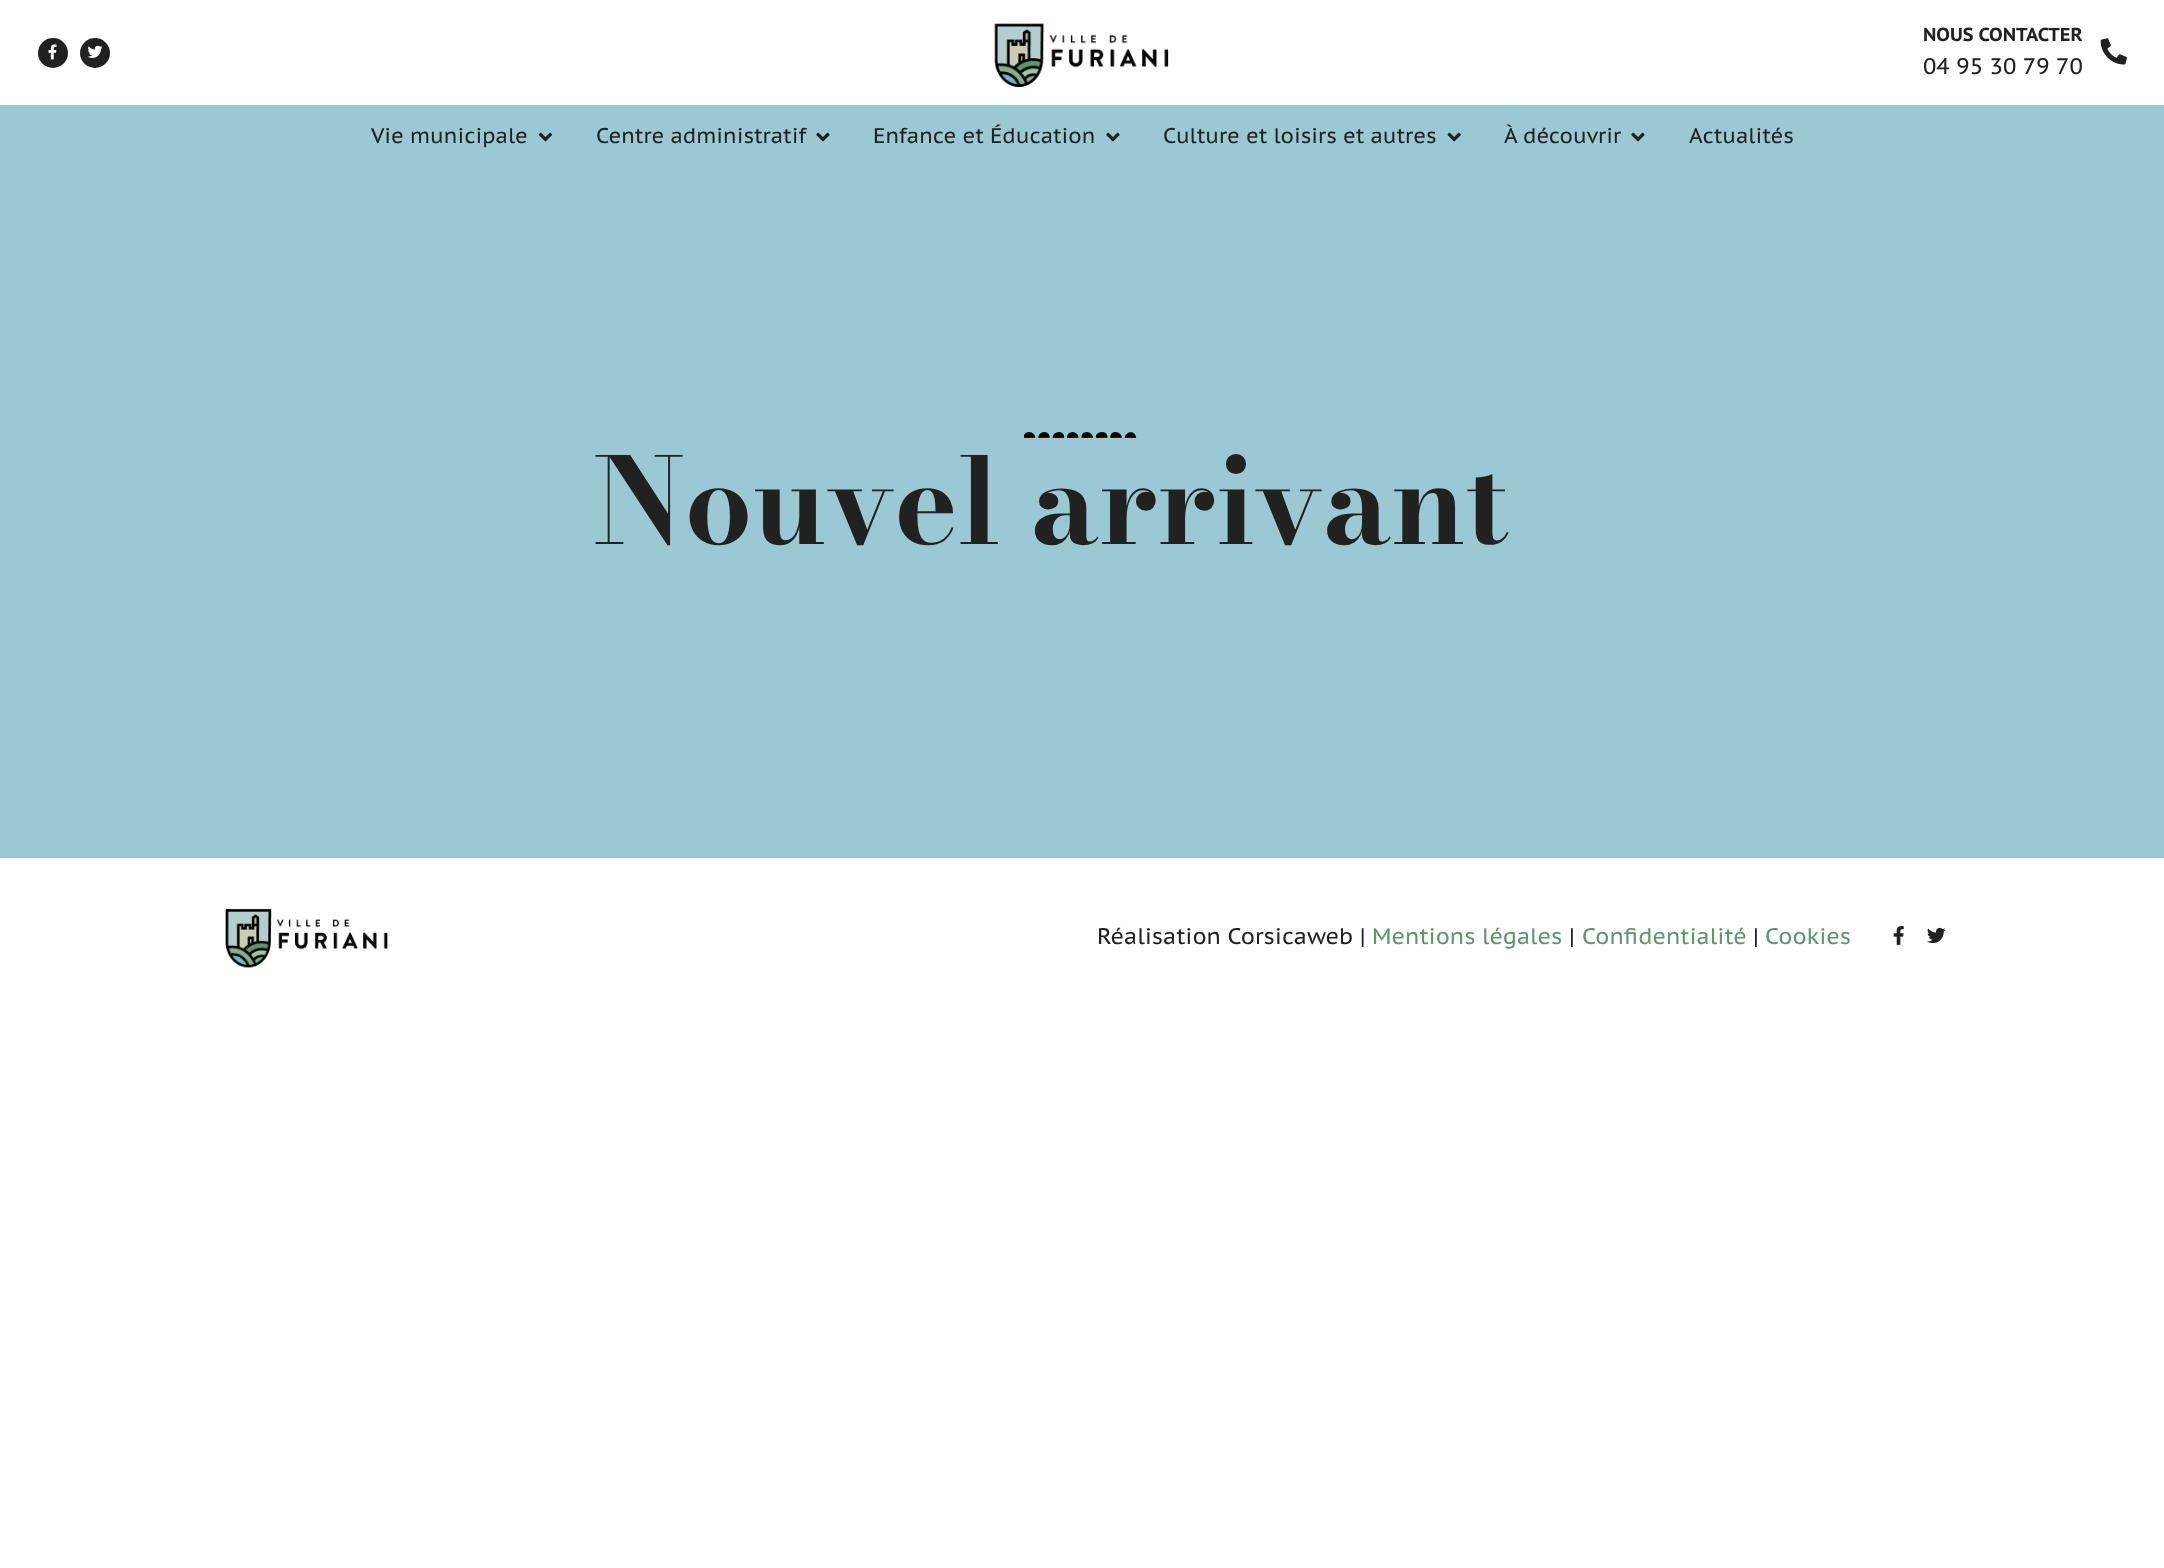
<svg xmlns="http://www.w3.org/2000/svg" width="2164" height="1568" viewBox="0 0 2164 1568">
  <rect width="100%" height="100%" fill="rgb(255,255,255)"/>
  <circle cx="53" cy="53" r="15" fill="rgb(33,33,33)"/>
  <image x="48" y="44" width="9" height="16" href="pic1.png"/>
  <circle cx="95" cy="53" r="15" fill="rgb(33,33,33)"/>
  <image x="87" y="45" width="16" height="13" href="pic2.png"/>
  <image x="994" y="23" width="175" height="64" href="pic3.png"/>
  <text x="1923" y="41" font-family="PT Sans Caption" font-size="18.75" font-weight="bold" fill="rgb(33,33,33)">NOUS CONTACTER</text>
  <text x="1923" y="74" font-family="PT Sans Caption" font-size="22.5" fill="rgb(33,33,33)">04 95 30 79 70</text>
  <image x="2100" y="38" width="27" height="27" href="pic4.png"/>
  <rect x="0" y="105" width="2164" height="753" fill="rgb(154,201,211)"/>
  <text x="371" y="143" font-family="PT Sans Caption" font-size="21.25" fill="rgb(33,33,33)">Vie municipale</text>
  <image x="538" y="132" width="15" height="10" href="pic5.png"/>
  <text x="596" y="143" font-family="PT Sans Caption" font-size="21.25" fill="rgb(33,33,33)">Centre administratif</text>
  <image x="816" y="132" width="14" height="10" href="pic6.png"/>
  <text x="873" y="143" font-family="PT Sans Caption" font-size="21.25" fill="rgb(33,33,33)">Enfance et Éducation</text>
  <image x="1106" y="132" width="14" height="10" href="pic6.png"/>
  <text x="1163" y="143" font-family="PT Sans Caption" font-size="21.25" fill="rgb(33,33,33)">Culture et loisirs et autres</text>
  <image x="1447" y="132" width="14" height="10" href="pic7.png"/>
  <text x="1504" y="143" font-family="PT Sans Caption" font-size="21.25" fill="rgb(33,33,33)">À découvrir</text>
  <image x="1631" y="132" width="14" height="10" href="pic6.png"/>
  <text x="1689" y="143" font-family="PT Sans Caption" font-size="21.25" fill="rgb(33,33,33)">Actualités</text>
  <image x="1024" y="432" width="113" height="6" href="pic8.png"/>
  <text x="593" y="544" font-family="Bodoni Moda" font-size="118.75" font-weight="bold" fill="rgb(33,33,33)">Nouvel arrivant</text>
  <image x="225" y="909" width="163" height="59" href="pic9.png"/>
  <text x="1097" y="944" font-family="PT Sans Caption" font-size="22.5" fill="rgb(33,33,33)">Réalisation Corsicaweb |</text>
  <text x="1372" y="944" font-family="PT Sans Caption" font-size="22.5" fill="rgb(94,150,105)">Mentions légales</text>
  <text x="1569" y="944" font-family="PT Sans Caption" font-size="22.5" fill="rgb(33,33,33)">|</text>
  <text x="1582" y="944" font-family="PT Sans Caption" font-size="22.5" fill="rgb(94,150,105)">Confidentialité</text>
  <text x="1753" y="944" font-family="PT Sans Caption" font-size="22.5" fill="rgb(33,33,33)">|</text>
  <text x="1765" y="944" font-family="PT Sans Caption" font-size="22.5" fill="rgb(94,150,105)">Cookies</text>
  <image x="1893" y="926" width="11" height="19" href="pic10.png"/>
  <image x="1927" y="927" width="19" height="17" href="pic11.png"/>
</svg>
